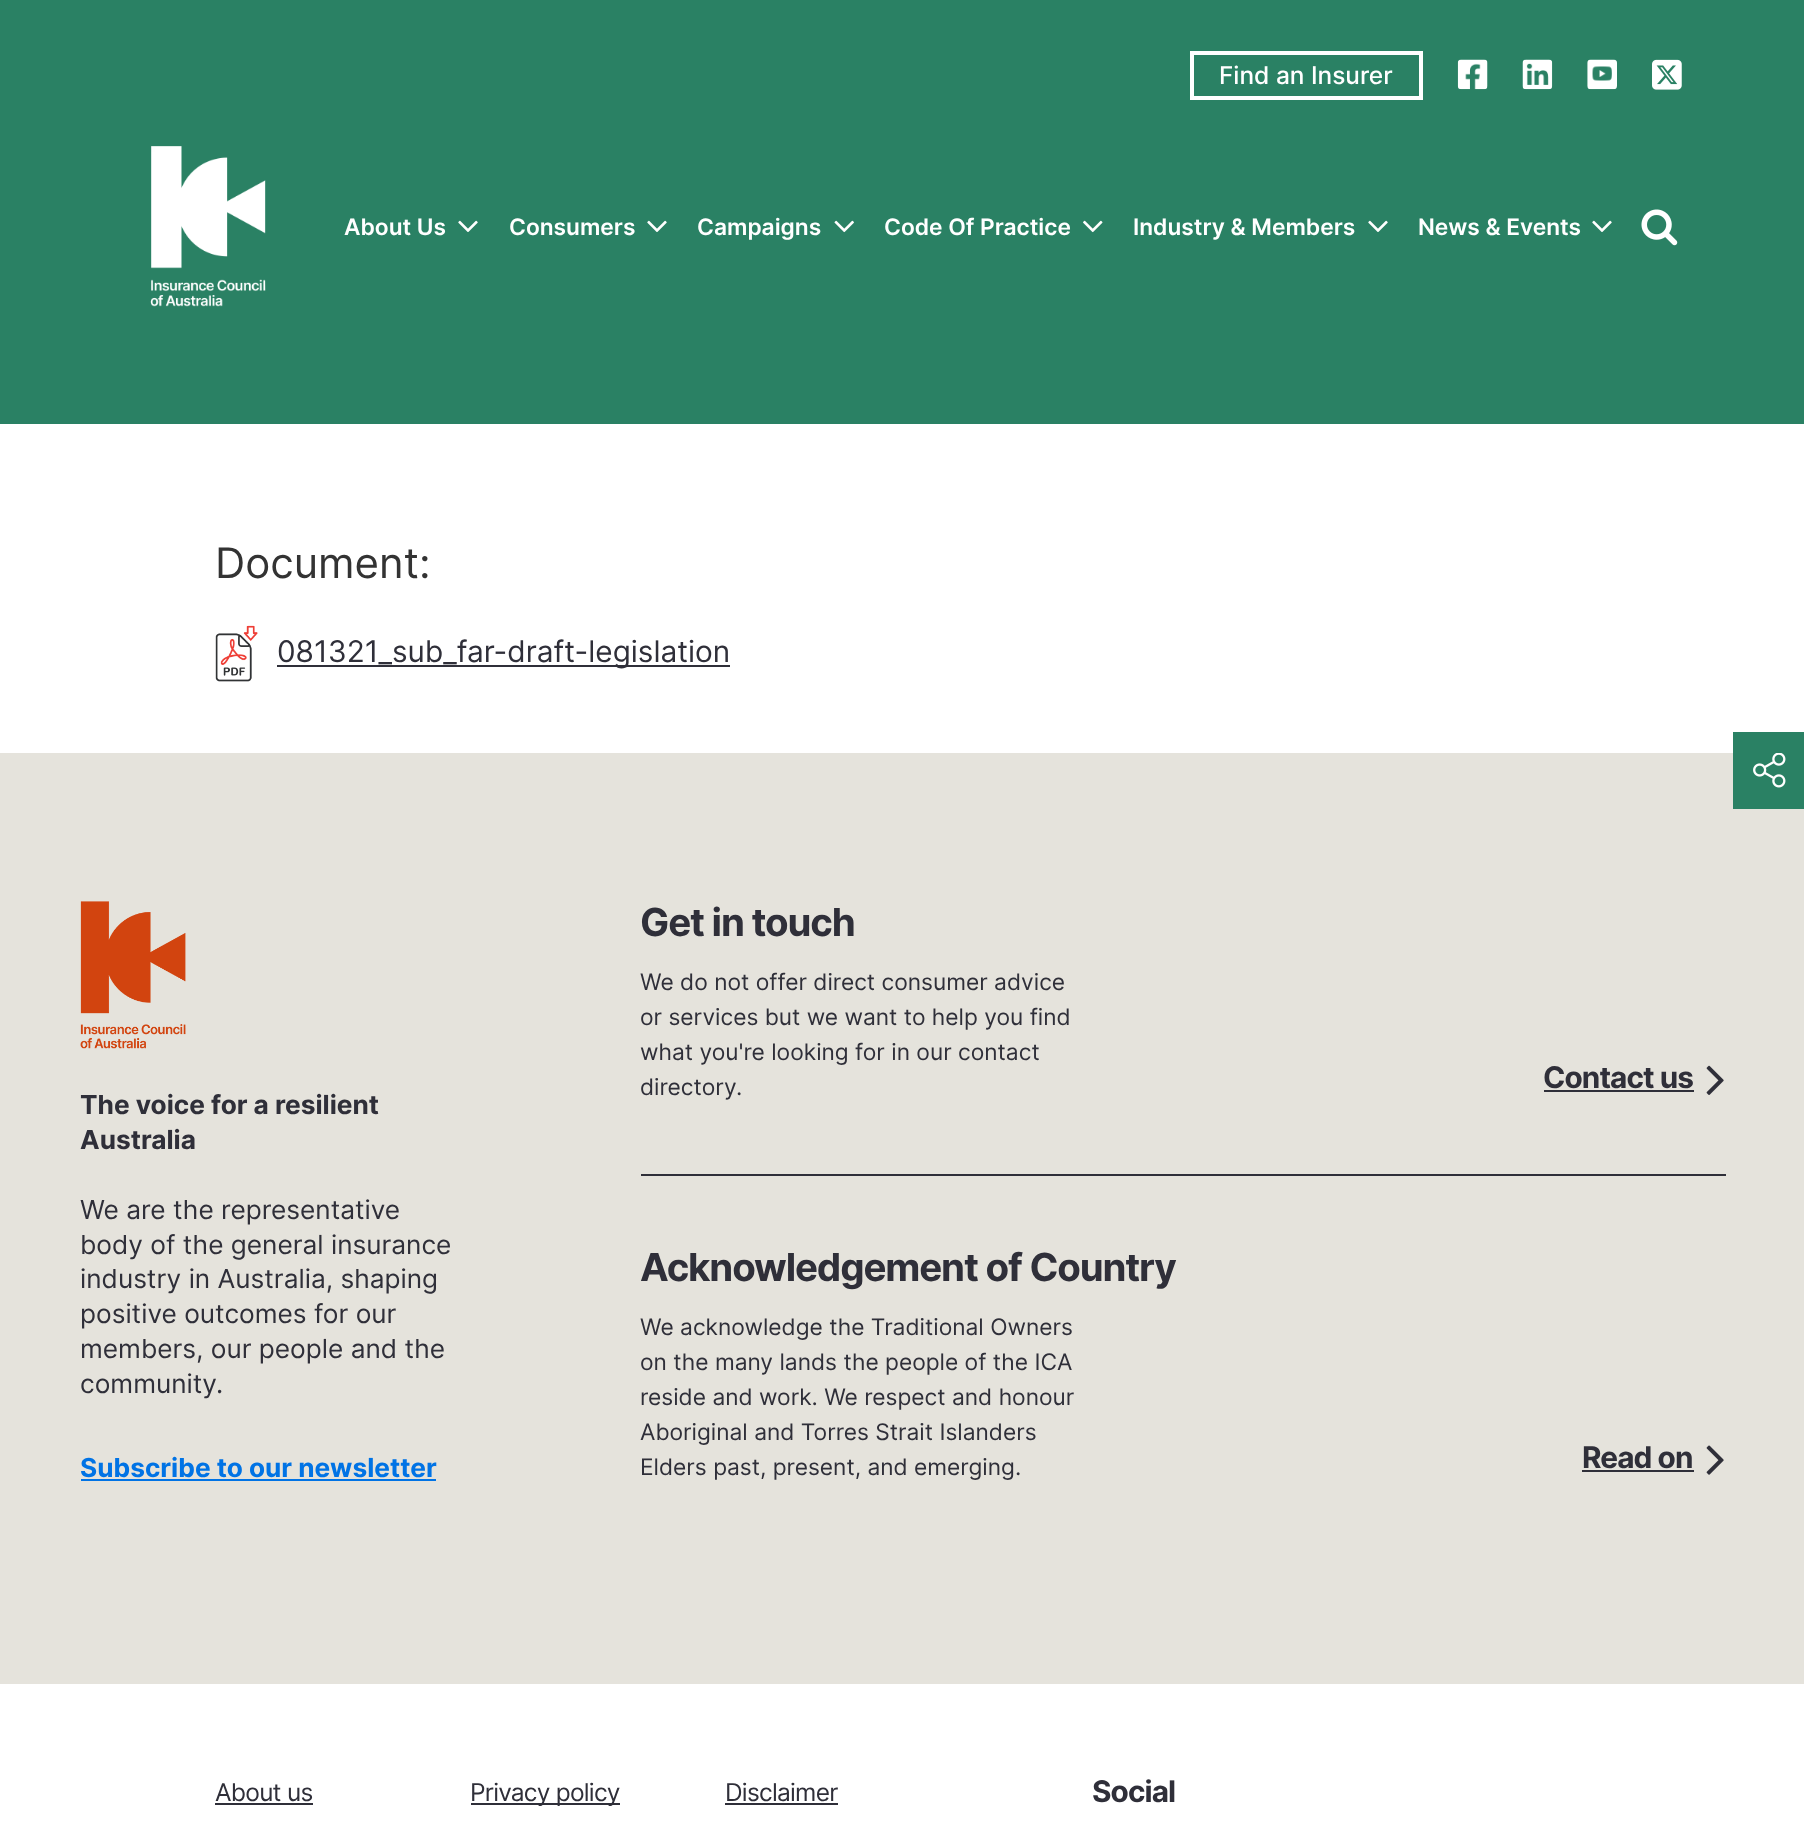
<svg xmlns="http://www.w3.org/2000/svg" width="1804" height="1830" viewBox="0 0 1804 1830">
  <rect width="100%" height="100%" fill="rgb(255,255,255)"/>
  <rect x="0" y="0" width="1804" height="424" fill="rgb(42,129,100)"/>
  <rect x="1192" y="53" width="229" height="45" fill="none" stroke="rgb(255,255,255)" stroke-width="4"/>
  <text x="1219" y="84" font-family="Inter" font-size="24.5" font-weight="500" fill="rgb(255,255,255)">Find an Insurer</text>
  <image x="1457" y="59" width="31" height="31" href="pic1.png"/>
  <image x="1522" y="59" width="31" height="31" href="pic2.png"/>
  <image x="1587" y="59" width="30" height="31" href="pic3.png"/>
  <image x="1652" y="59" width="30" height="31" href="pic4.png"/>
  <image x="150" y="146" width="116" height="161" href="pic5.png"/>
  <text x="344" y="235" font-family="Inter" font-size="22.75" font-weight="600" fill="rgb(255,255,255)">About Us</text>
  <image x="458" y="220" width="20" height="12" href="pic6.png"/>
  <text x="509" y="235" font-family="Inter" font-size="22.75" font-weight="600" fill="rgb(255,255,255)">Consumers</text>
  <image x="647" y="220" width="20" height="12" href="pic6.png"/>
  <text x="697" y="235" font-family="Inter" font-size="22.75" font-weight="600" fill="rgb(255,255,255)">Campaigns</text>
  <image x="834" y="220" width="20" height="13" href="pic7.png"/>
  <text x="884" y="235" font-family="Inter" font-size="22.75" font-weight="600" fill="rgb(255,255,255)">Code Of Practice</text>
  <image x="1083" y="220" width="20" height="13" href="pic8.png"/>
  <text x="1133" y="235" font-family="Inter" font-size="22.75" font-weight="600" fill="rgb(255,255,255)">Industry &amp; Members</text>
  <image x="1368" y="220" width="20" height="12" href="pic6.png"/>
  <text x="1418" y="235" font-family="Inter" font-size="22.75" font-weight="600" fill="rgb(255,255,255)">News &amp; Events</text>
  <image x="1592" y="220" width="20" height="12" href="pic6.png"/>
  <image x="1641" y="209" width="37" height="37" href="pic9.png"/>
  <text x="215" y="578" font-family="Inter" font-size="42" fill="rgb(51,51,51)">Document:</text>
  <image x="215" y="625" width="43" height="57" href="pic10.png"/>
  <rect x="277" y="665" width="453" height="2" fill="rgb(47,47,57)"/>
  <text x="277" y="662" font-family="Inter" font-size="29.75" fill="rgb(47,47,57)">081321_sub_far-draft-legislation</text>
  <rect x="0" y="753" width="1804" height="931" fill="rgb(229,227,220)"/>
  <rect x="1733" y="732" width="71" height="77" fill="rgb(42,129,100)"/>
  <image x="1753" y="753" width="33" height="35" href="pic11.png"/>
  <image x="80" y="901" width="106" height="148" href="pic12.png"/>
  <g font-family="Inter" font-size="26.25" font-weight="bold" fill="rgb(47,47,57)">
    <text>
      <tspan x="80" y="1114">The voice for a resilient</tspan>
      <tspan x="80" y="1149">Australia</tspan>
    </text>
  </g>
  <g font-family="Inter" font-size="26.25" fill="rgb(47,47,57)">
    <text>
      <tspan x="80" y="1219">We are the representative</tspan>
      <tspan x="80" y="1254">body of the general insurance</tspan>
      <tspan x="80" y="1288">industry in Australia, shaping</tspan>
      <tspan x="80" y="1323">positive outcomes for our</tspan>
      <tspan x="80" y="1358">members, our people and the</tspan>
      <tspan x="80" y="1393">community.</tspan>
    </text>
  </g>
  <text x="80" y="1477" font-family="Inter" font-size="26.25" font-weight="bold" fill="rgb(0,115,229)">Subscribe to our newsletter</text>
  <rect x="81" y="1479" width="355" height="2" fill="rgb(0,115,229)"/>
  <rect x="641" y="1174" width="1085" height="2" fill="rgb(47,47,57)"/>
  <text x="640" y="936" font-family="Inter" font-size="38.5" font-weight="bold" letter-spacing="-1.15" fill="rgb(47,47,57)">Get in touch</text>
  <g font-family="Inter" font-size="22.75" fill="rgb(47,47,57)">
    <text>
      <tspan x="640" y="990">We do not offer direct consumer advice</tspan>
      <tspan x="640" y="1025">or services but we want to help you find</tspan>
      <tspan x="640" y="1060">what you're looking for in our contact</tspan>
      <tspan x="640" y="1095">directory.</tspan>
    </text>
  </g>
  <text x="1543" y="1088" font-family="Inter" font-size="29.75" font-weight="bold" letter-spacing="-0.9" fill="rgb(47,47,57)">Contact us</text>
  <rect x="1544" y="1090" width="150" height="2" fill="rgb(47,47,57)"/>
  <image x="1706" y="1065" width="18" height="30" href="pic13.png"/>
  <text x="640" y="1281" font-family="Inter" font-size="38.5" font-weight="bold" letter-spacing="-1.15" fill="rgb(47,47,57)">Acknowledgement of Country</text>
  <g font-family="Inter" font-size="22.75" fill="rgb(47,47,57)">
    <text>
      <tspan x="640" y="1335">We acknowledge the Traditional Owners</tspan>
      <tspan x="640" y="1370">on the many lands the people of the ICA</tspan>
      <tspan x="640" y="1405">reside and work. We respect and honour</tspan>
      <tspan x="640" y="1440">Aboriginal and Torres Strait Islanders</tspan>
      <tspan x="640" y="1475">Elders past, present, and emerging.</tspan>
    </text>
  </g>
  <text x="1582" y="1468" font-family="Inter" font-size="29.75" font-weight="bold" letter-spacing="-0.9" fill="rgb(47,47,57)">Read on</text>
  <rect x="1582" y="1470" width="112" height="2" fill="rgb(47,47,57)"/>
  <image x="1706" y="1445" width="18" height="30" href="pic14.png"/>
  <text x="215" y="1801" font-family="Inter" font-size="24.5" letter-spacing="-0.75" fill="rgb(47,47,57)">About us</text>
  <rect x="215" y="1803" width="98" height="2" fill="rgb(47,47,57)"/>
  <rect x="471" y="1803" width="149" height="2" fill="rgb(47,47,57)"/>
  <g font-family="Inter" font-size="24.5" letter-spacing="-0.75" fill="rgb(47,47,57)">
    <text x="470" y="1801">Privacy policy</text>
    <text x="725" y="1801">Disclaimer</text>
  </g>
  <rect x="725" y="1803" width="113" height="2" fill="rgb(47,47,57)"/>
  <text x="1092" y="1802" font-family="Inter" font-size="29.75" font-weight="bold" letter-spacing="-0.9" fill="rgb(47,47,57)">Social</text>
</svg>
